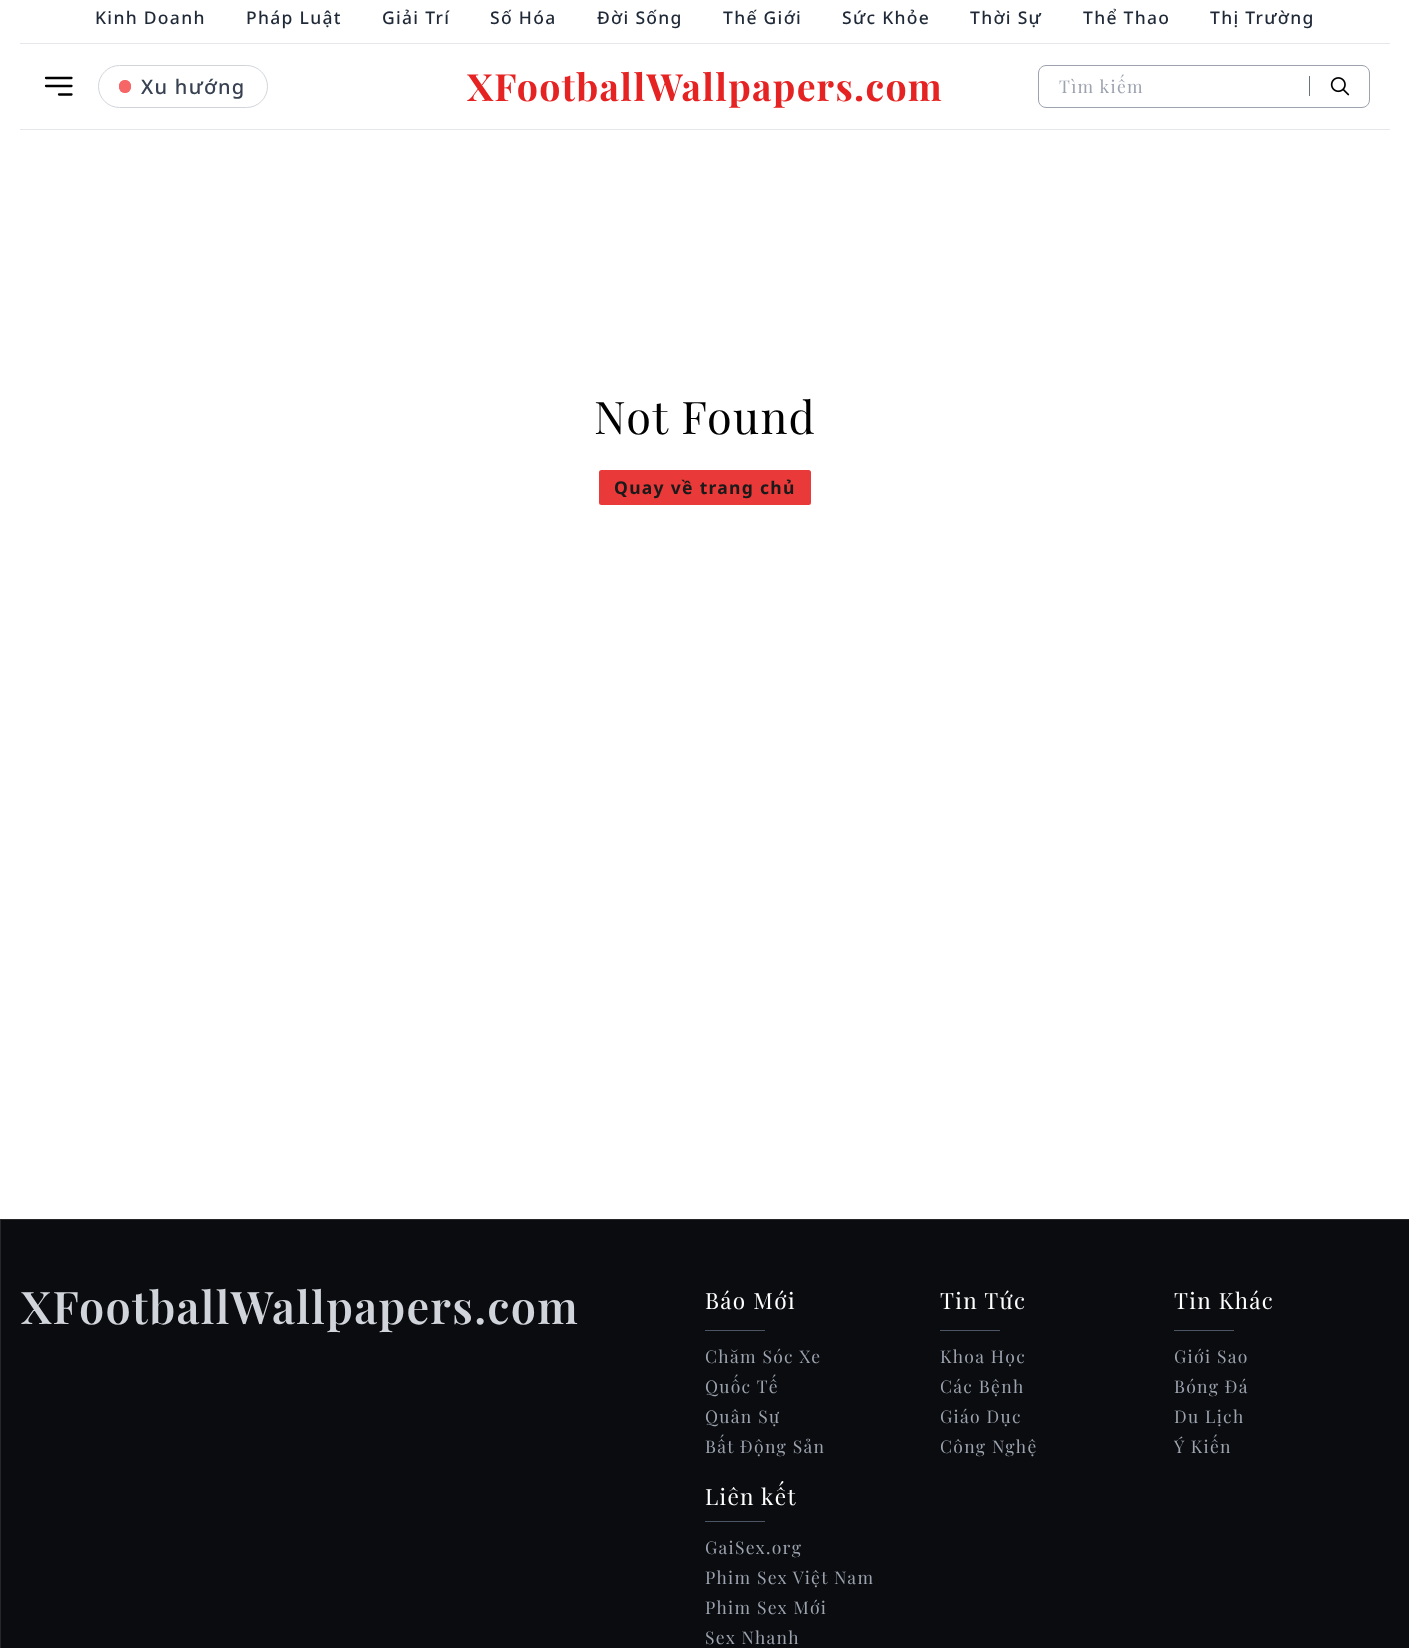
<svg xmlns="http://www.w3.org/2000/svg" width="1409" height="1648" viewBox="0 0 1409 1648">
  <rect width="100%" height="100%" fill="rgb(255,255,255)"/>
  <rect x="20" y="43" width="1370" height="1" fill="rgb(229,231,235)"/>
  <g font-family="Noto Sans" font-size="17.5" font-weight="500" letter-spacing="1.3" fill="rgb(31,41,55)">
    <text x="95" y="24">Kinh Doanh</text>
    <text x="246" y="24">Pháp Luật</text>
    <text x="382" y="24">Giải Trí</text>
    <text x="490" y="24">Số Hóa</text>
    <text x="597" y="24">Đời Sống</text>
    <text x="723" y="24">Thế Giới</text>
    <text x="842" y="24">Sức Khỏe</text>
    <text x="970" y="24">Thời Sự</text>
    <text x="1083" y="24">Thể Thao</text>
    <text x="1210" y="24">Thị Trường</text>
  </g>
  <rect x="20" y="129" width="1370" height="1" fill="rgb(229,231,235)"/>
  <path d="M46 78H71.5M46 86H71.5M59 94.5H71.5" fill="none" stroke="rgb(0,0,0)" stroke-width="2.3" stroke-linecap="round" stroke-linejoin="round"/>
  <rect x="98.5" y="65.5" width="169" height="42" rx="21" fill="none" stroke="rgb(209,213,219)"/>
  <rect x="119" y="80" width="12" height="13" rx="6" fill="rgb(239,68,68)"/>
  <rect x="119" y="80" width="12" height="13" rx="6" fill="rgba(248,113,113,0.75)"/>
  <text x="141" y="94" font-family="Noto Sans" font-size="20" font-weight="500" letter-spacing="1.3" fill="rgb(55,65,81)">Xu hướng</text>
  <text x="467" y="101" font-family="Playfair Display" font-size="37.5" font-weight="bold" letter-spacing="1.3" fill="rgb(230,35,35)">XFootballWallpapers.com</text>
  <rect x="1038.5" y="65.5" width="331" height="42" rx="7.5" fill="none" stroke="rgb(156,163,175)"/>
  <text x="1059" y="93" font-family="Playfair Display" font-size="17.5" letter-spacing="1.3" fill="rgb(156,163,175)">Tìm kiếm</text>
  <rect x="1309" y="76" width="1" height="20" fill="rgb(107,114,128)"/>
  <image x="1330" y="77" width="20" height="19" href="pic1.png"/>
  <text x="594" y="434" font-family="Playfair Display" font-size="45" letter-spacing="1.3" fill="rgb(0,0,0)">Not Found</text>
  <rect x="599" y="470" width="212" height="35" rx="2.5" fill="rgb(233,57,57)"/>
  <text x="614" y="494" font-family="Noto Sans" font-size="17.5" font-weight="bold" letter-spacing="1.3" fill="rgb(26,26,26)">Quay về trang chủ</text>
  <rect x="0.5" y="1219.5" width="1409" height="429" fill="rgb(10,12,15)" stroke="rgb(39,39,42)"/>
  <text x="21" y="1324" font-family="Playfair Display" font-size="45" font-weight="600" letter-spacing="1.3" fill="rgb(209,213,219)">XFootballWallpapers.com</text>
  <text x="705" y="1309" font-family="Playfair Display" font-size="22.5" letter-spacing="1.3" fill="rgb(255,255,255)">Báo Mới</text>
  <rect x="705" y="1330" width="60" height="1" fill="rgb(75,85,99)"/>
  <g font-family="Playfair Display" font-size="17.5" letter-spacing="1.3" fill="rgb(156,163,175)">
    <text>
      <tspan x="705" y="1363">Chăm Sóc Xe</tspan>
      <tspan x="705" y="1393">Quốc Tế</tspan>
      <tspan x="705" y="1423">Quân Sự</tspan>
      <tspan x="705" y="1453">Bất Động Sản</tspan>
    </text>
  </g>
  <text x="940" y="1309" font-family="Playfair Display" font-size="22.5" letter-spacing="1.3" fill="rgb(255,255,255)">Tin Tức</text>
  <rect x="940" y="1330" width="60" height="1" fill="rgb(75,85,99)"/>
  <g font-family="Playfair Display" font-size="17.5" letter-spacing="1.3" fill="rgb(156,163,175)">
    <text>
      <tspan x="940" y="1363">Khoa Học</tspan>
      <tspan x="940" y="1393">Các Bệnh</tspan>
      <tspan x="940" y="1423">Giáo Dục</tspan>
      <tspan x="940" y="1453">Công Nghệ</tspan>
    </text>
  </g>
  <text x="1174" y="1309" font-family="Playfair Display" font-size="22.5" letter-spacing="1.3" fill="rgb(255,255,255)">Tin Khác</text>
  <rect x="1174" y="1330" width="60" height="1" fill="rgb(75,85,99)"/>
  <g font-family="Playfair Display" font-size="17.5" letter-spacing="1.3" fill="rgb(156,163,175)">
    <text>
      <tspan x="1174" y="1363">Giới Sao</tspan>
      <tspan x="1174" y="1393">Bóng Đá</tspan>
      <tspan x="1174" y="1423">Du Lịch</tspan>
      <tspan x="1174" y="1453">Ý Kiến</tspan>
    </text>
  </g>
  <text x="705" y="1505" font-family="Playfair Display" font-size="22.5" letter-spacing="1.3" fill="rgb(255,255,255)">Liên kết</text>
  <rect x="705" y="1521" width="60" height="1" fill="rgb(75,85,99)"/>
  <g font-family="Playfair Display" font-size="17.5" letter-spacing="1.3" fill="rgb(156,163,175)">
    <text>
      <tspan x="705" y="1554">GaiSex.org</tspan>
      <tspan x="705" y="1584">Phim Sex Việt Nam</tspan>
      <tspan x="705" y="1614">Phim Sex Mới</tspan>
      <tspan x="705" y="1644">Sex Nhanh</tspan>
    </text>
  </g>
</svg>
